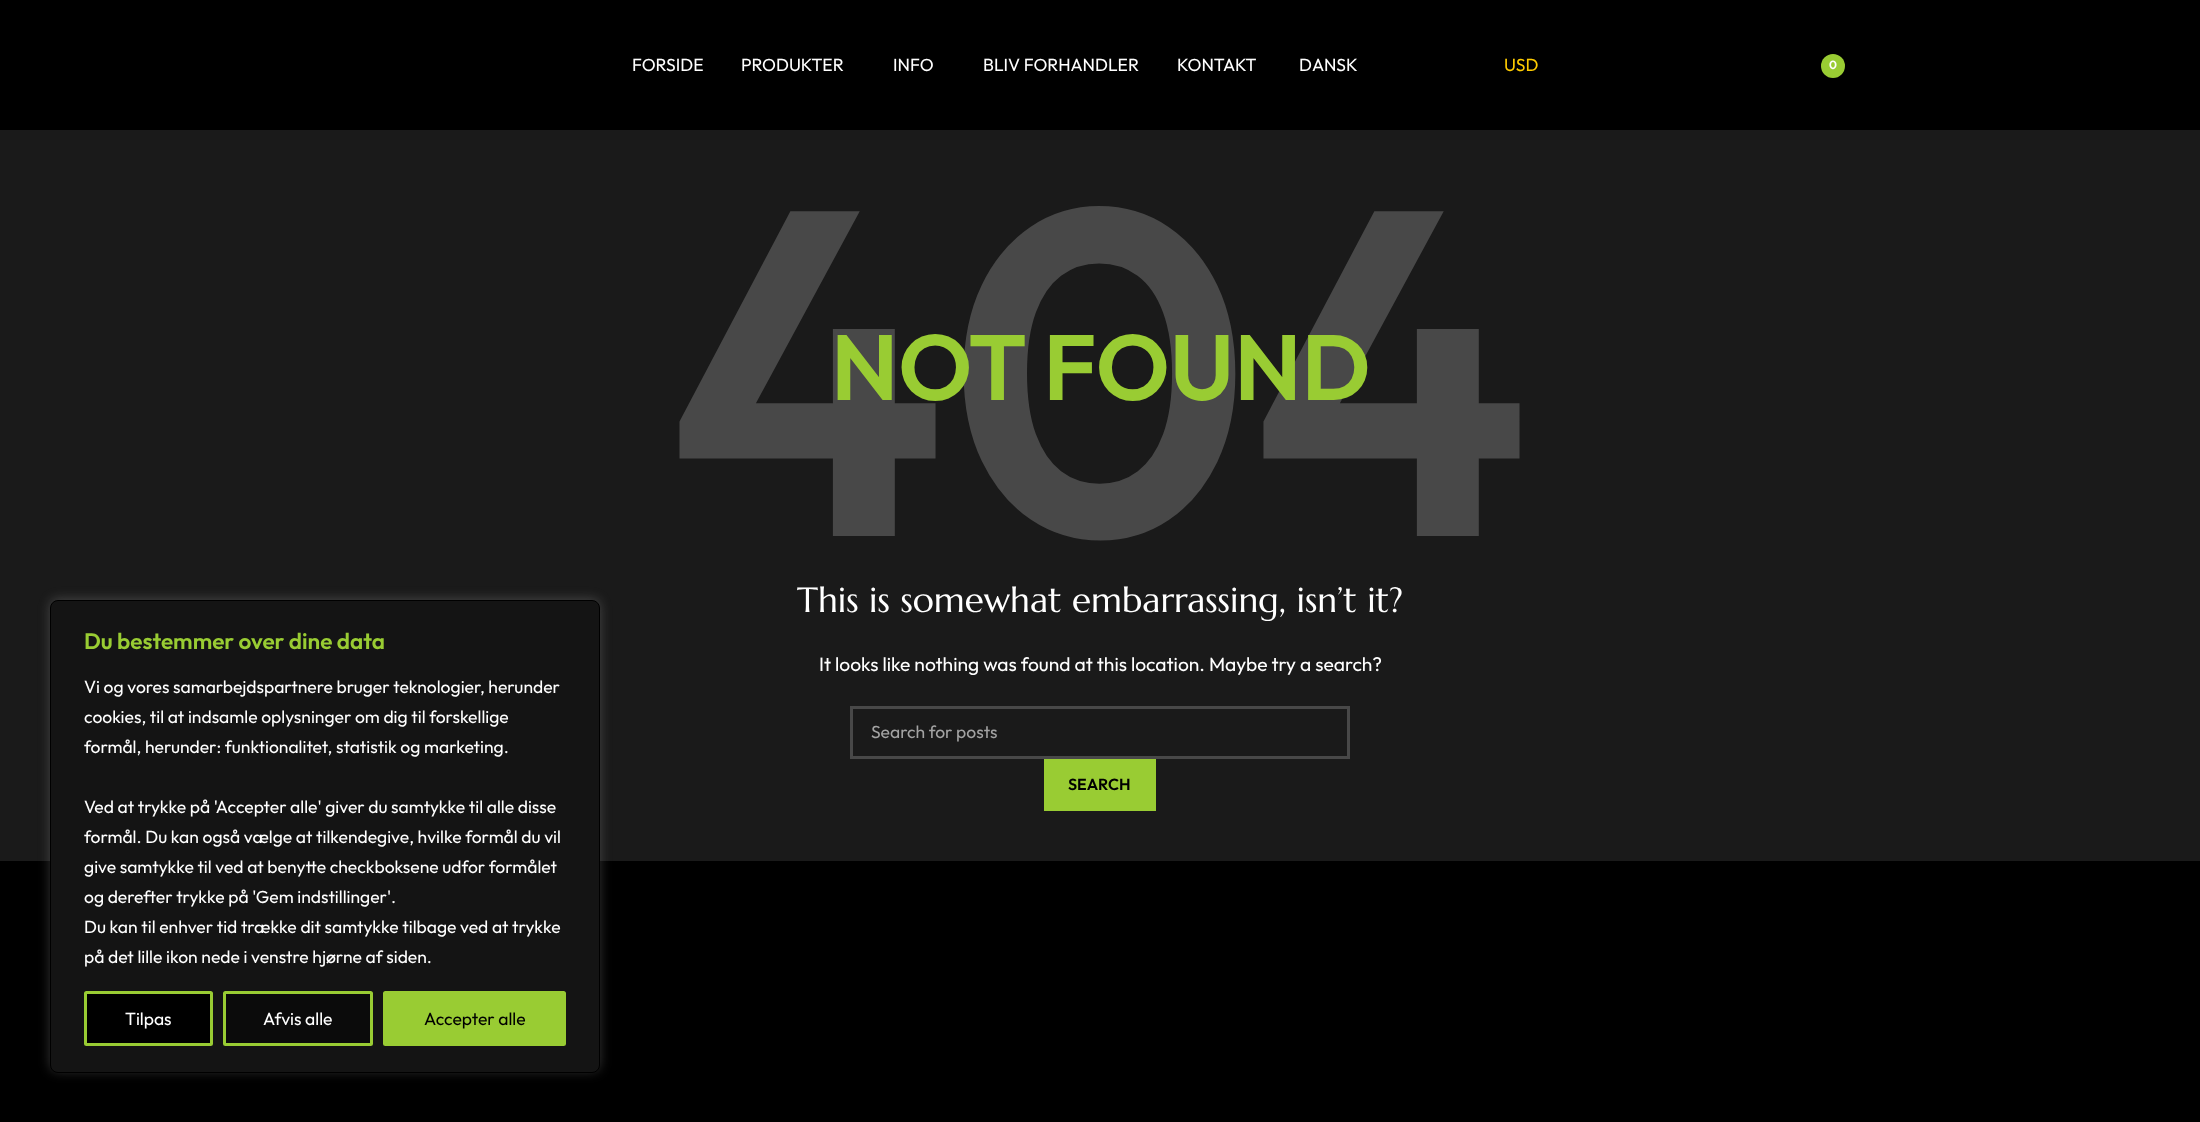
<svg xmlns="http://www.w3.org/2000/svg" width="2200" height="1122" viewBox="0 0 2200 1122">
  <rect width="100%" height="100%" fill="rgb(26,26,26)"/>
  <rect x="0" y="861" width="2200" height="261" fill="rgb(0,0,0)"/>
  <rect x="50" y="599" width="550" height="472" rx="8" fill="rgba(172,171,171,0.3)" filter="blur(6px)"/>
  <rect x="50.5" y="600.5" width="549" height="472" rx="7.5" fill="rgb(20,20,20)" stroke="rgb(0,0,0)"/>
  <text x="84" y="649" font-family="Outfit" font-size="22.5" font-weight="600" fill="rgb(153,204,51)">Du bestemmer over dine data</text>
  <g font-family="Outfit" font-size="17.5" fill="rgb(255,255,255)">
    <text>
      <tspan x="84" y="693">Vi og vores samarbejdspartnere bruger teknologier, herunder</tspan>
      <tspan x="84" y="723">cookies, til at indsamle oplysninger om dig til forskellige</tspan>
      <tspan x="84" y="753">formål, herunder: funktionalitet, statistik og marketing.</tspan>
    </text>
    <text>
      <tspan x="84" y="813">Ved at trykke på 'Accepter alle' giver du samtykke til alle disse</tspan>
      <tspan x="84" y="843">formål. Du kan også vælge at tilkendegive, hvilke formål du vil</tspan>
      <tspan x="84" y="873">give samtykke til ved at benytte checkboksene udfor formålet</tspan>
      <tspan x="84" y="903">og derefter trykke på 'Gem indstillinger'.</tspan>
      <tspan x="84" y="933">Du kan til enhver tid trække dit samtykke tilbage ved at trykke</tspan>
      <tspan x="84" y="963">på det lille ikon nede i venstre hjørne af siden.</tspan>
    </text>
  </g>
  <rect x="85.5" y="992.5" width="126" height="52" rx="1" fill="rgb(0,0,0)" stroke="rgb(153,204,51)" stroke-width="3"/>
  <text x="125" y="1025" font-family="Outfit" font-size="17.5" fill="rgb(255,255,255)">Tilpas</text>
  <rect x="224.5" y="992.5" width="147" height="52" rx="1" fill="rgb(11,11,11)" stroke="rgb(153,204,51)" stroke-width="3"/>
  <text x="263" y="1025" font-family="Outfit" font-size="17.5" fill="rgb(255,255,255)">Afvis alle</text>
  <rect x="384.5" y="992.5" width="180" height="52" rx="1" fill="rgb(153,204,51)" stroke="rgb(153,204,51)" stroke-width="3"/>
  <text x="424" y="1025" font-family="Outfit" font-size="17.5" fill="rgb(0,0,0)">Accepter alle</text>
  <rect x="0" y="0" width="2200" height="130" fill="rgb(0,0,0)"/>
  <g font-family="Outfit" font-size="17.5" fill="rgb(255,255,255)">
    <text x="632" y="71">FORSIDE</text>
    <text x="741" y="71">PRODUKTER</text>
    <text x="893" y="71">INFO</text>
    <text x="983" y="71">BLIV FORHANDLER</text>
    <text x="1177" y="71">KONTAKT</text>
    <text x="1299" y="71">DANSK</text>
  </g>
  <text x="1504" y="71" font-family="Outfit" font-size="17.5" fill="rgb(255,204,0)">USD</text>
  <circle cx="1833" cy="66" r="12" fill="rgb(153,204,51)"/>
  <text x="1829" y="69" font-family="Outfit" font-size="12" font-weight="600" fill="rgb(255,255,255)">0</text>
  <text x="668" y="536" font-family="Outfit" font-size="462" font-weight="600" fill="rgb(72,72,72)">404</text>
  <text x="831" y="400" font-family="Outfit" font-size="92.5" font-weight="600" fill="rgb(153,204,51)">NOT FOUND</text>
  <text x="797" y="612" font-family="Marcellus" font-size="35" fill="rgb(255,255,255)">This is somewhat embarrassing, isn’t it?</text>
  <text x="819" y="671" font-family="Outfit" font-size="19.25" fill="rgb(255,255,255)">It looks like nothing was found at this location. Maybe try a search?</text>
  <rect x="851.5" y="707.5" width="497" height="50" fill="none" stroke="rgb(72,72,72)" stroke-width="3"/>
  <text x="871" y="738" font-family="Outfit" font-size="17.5" fill="rgb(163,163,163)">Search for posts</text>
  <rect x="1044" y="759" width="112" height="52" fill="rgb(153,204,51)"/>
  <text x="1068" y="790" font-family="Outfit" font-size="16" font-weight="600" fill="rgb(0,0,0)">SEARCH</text>
</svg>
